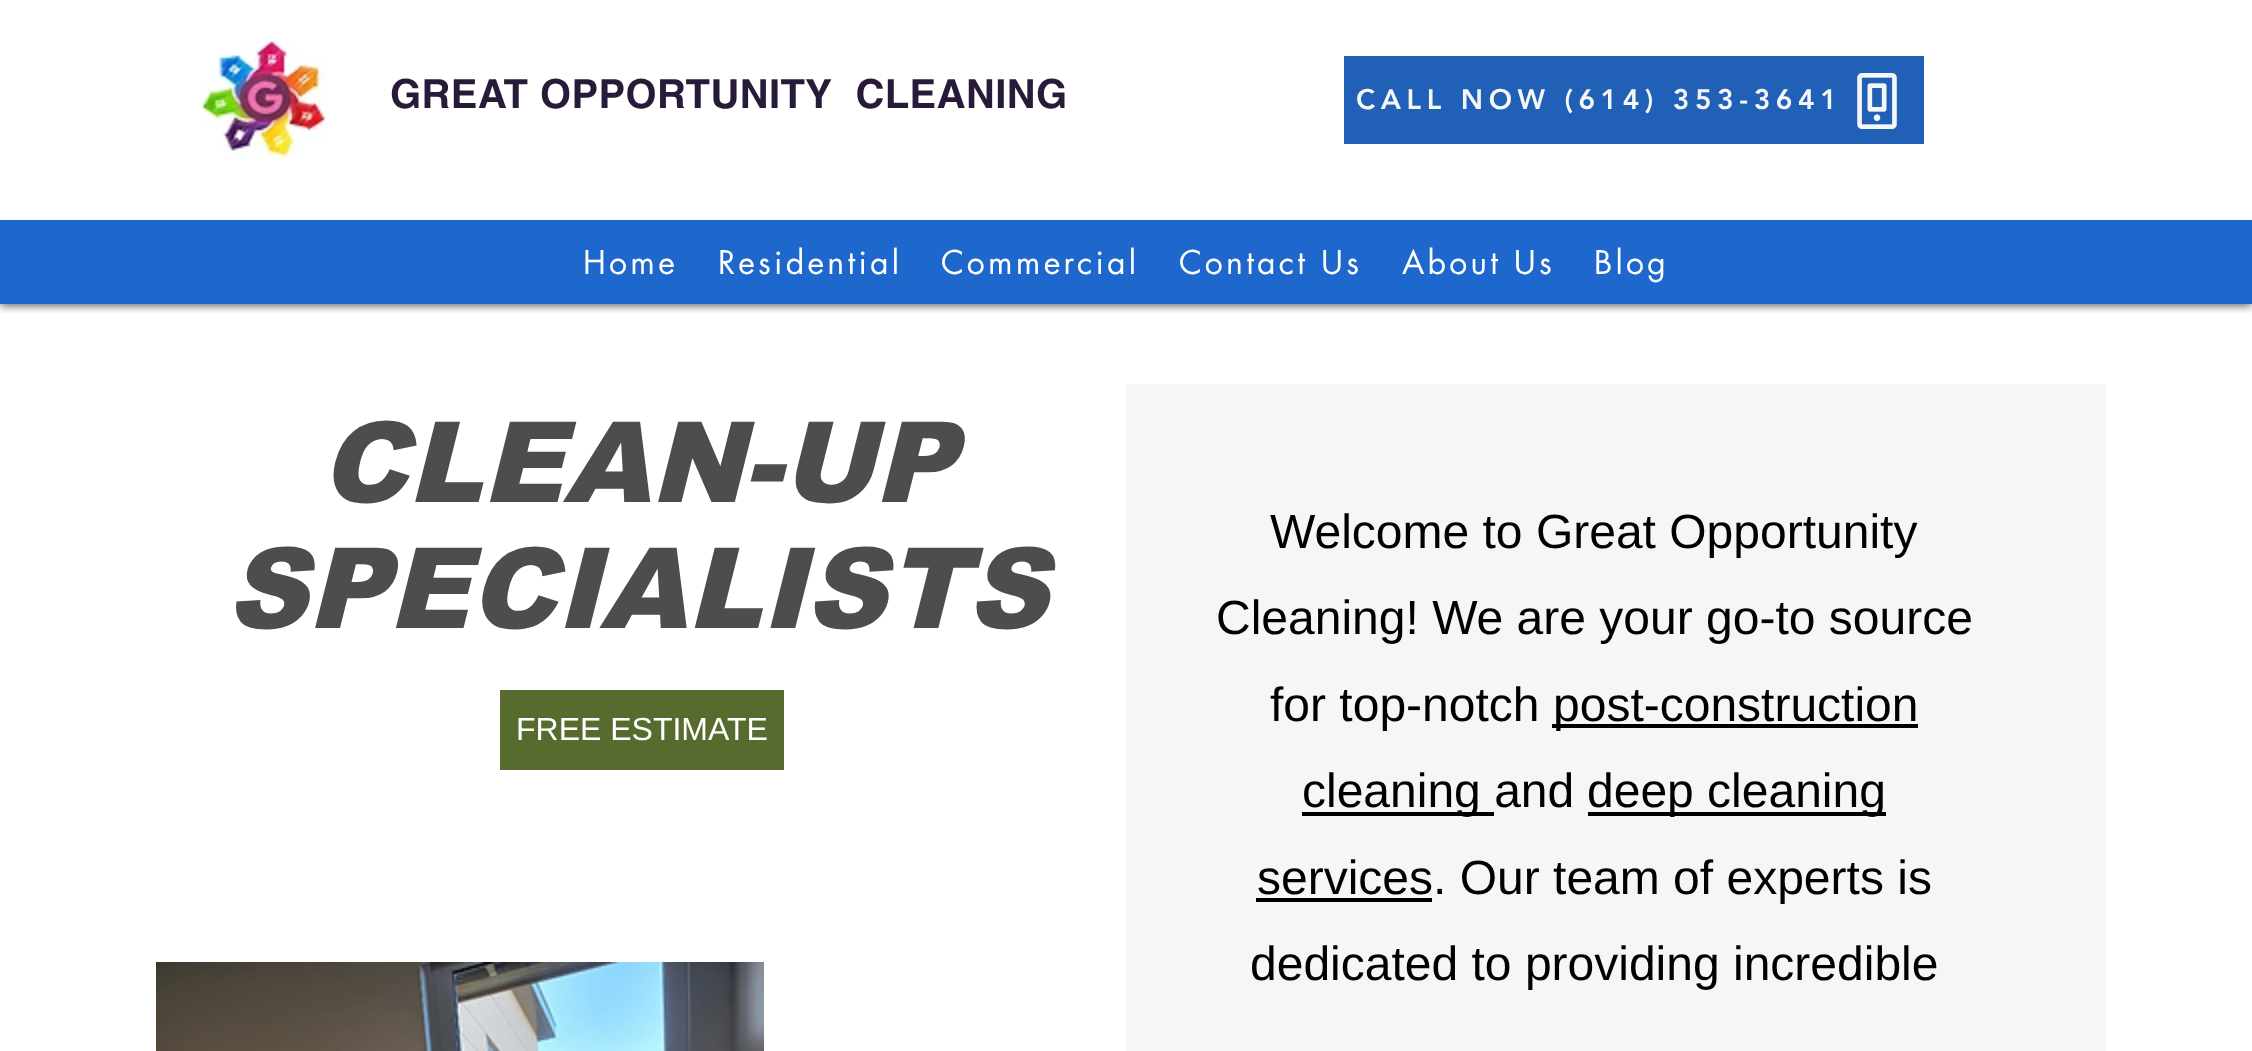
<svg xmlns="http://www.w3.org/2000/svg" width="2252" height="1051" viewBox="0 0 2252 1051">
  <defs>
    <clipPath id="clip1"><rect x="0" y="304" width="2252" height="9"/></clipPath>
  </defs>
  <rect width="100%" height="100%" fill="rgb(255,255,255)"/>
  <g clip-path="url(#clip1)">
    <rect x="0" y="2" width="2252" height="304" fill="rgba(0,0,0,0.6)" filter="blur(4px)"/>
  </g>
  <image x="200" y="40" width="128" height="118" href="pic1.png"/>
  <text x="390" y="108" font-family="helvetica" font-size="40" font-weight="bold" letter-spacing="0.4" fill="rgb(40,26,57)" xml:space="preserve">GREAT OPPORTUNITY  CLEANING</text>
  <rect x="1344" y="56" width="580" height="88" fill="rgb(32,97,183)"/>
  <text x="1356" y="109" font-family="'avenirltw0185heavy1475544'" font-size="28" font-weight="900" letter-spacing="5.6" fill="rgb(246,246,246)">CALL NOW (614) 353-3641</text>
  <image x="1857" y="73" width="40" height="56" href="pic2.png"/>
  <rect x="0" y="220" width="2252" height="84" fill="rgb(29,103,205)"/>
  <g font-family="futura" font-size="32" letter-spacing="3.25" fill="rgb(255,255,255)">
    <text x="583" y="274">Home</text>
    <text x="718" y="274">Residential</text>
    <text x="941" y="274">Commercial</text>
    <text x="1179" y="274">Contact Us</text>
    <text x="1402" y="274">About Us</text>
    <text x="1594" y="274">Blog</text>
  </g>
  <g font-family="arial" font-size="112" font-weight="900" font-style="italic" fill="rgb(77,77,77)">
    <text x="320" y="502">CLEAN-UP</text>
    <text x="226" y="628">SPECIALISTS</text>
  </g>
  <rect x="500" y="690" width="284" height="80" fill="rgb(88,107,46)"/>
  <text x="516" y="740" font-family="Liberation Sans" font-size="32" fill="rgb(255,255,255)">FREE ESTIMATE</text>
  <rect x="1126" y="384" width="980" height="667" fill="rgb(246,246,246)"/>
  <g font-family="Liberation Sans" font-size="48" fill="rgb(0,0,0)">
    <text x="1270" y="548">Welcome to Great Opportunity</text>
    <text x="1216" y="634">Cleaning! We are your go-to source</text>
    <text x="1270" y="721">for top-notch</text>
  </g>
  <rect x="1552" y="724" width="366" height="4" fill="rgb(0,0,0)"/>
  <text x="1553" y="721" font-family="Liberation Sans" font-size="48" fill="rgb(0,0,0)">post-construction</text>
  <rect x="1302" y="812" width="192" height="4" fill="rgb(0,0,0)"/>
  <text x="1302" y="807" font-family="Liberation Sans" font-size="48" fill="rgb(0,0,0)">cleaning and</text>
  <rect x="1588" y="812" width="298" height="4" fill="rgb(0,0,0)"/>
  <text x="1587" y="807" font-family="Liberation Sans" font-size="48" fill="rgb(0,0,0)">deep cleaning</text>
  <rect x="1256" y="898" width="176" height="4" fill="rgb(0,0,0)"/>
  <g font-family="Liberation Sans" font-size="48" fill="rgb(0,0,0)">
    <text x="1257" y="894">services. Our team of experts is</text>
    <text x="1250" y="980">dedicated to providing incredible</text>
  </g>
  <image x="156" y="962" width="608" height="89" href="pic3.png"/>
</svg>
